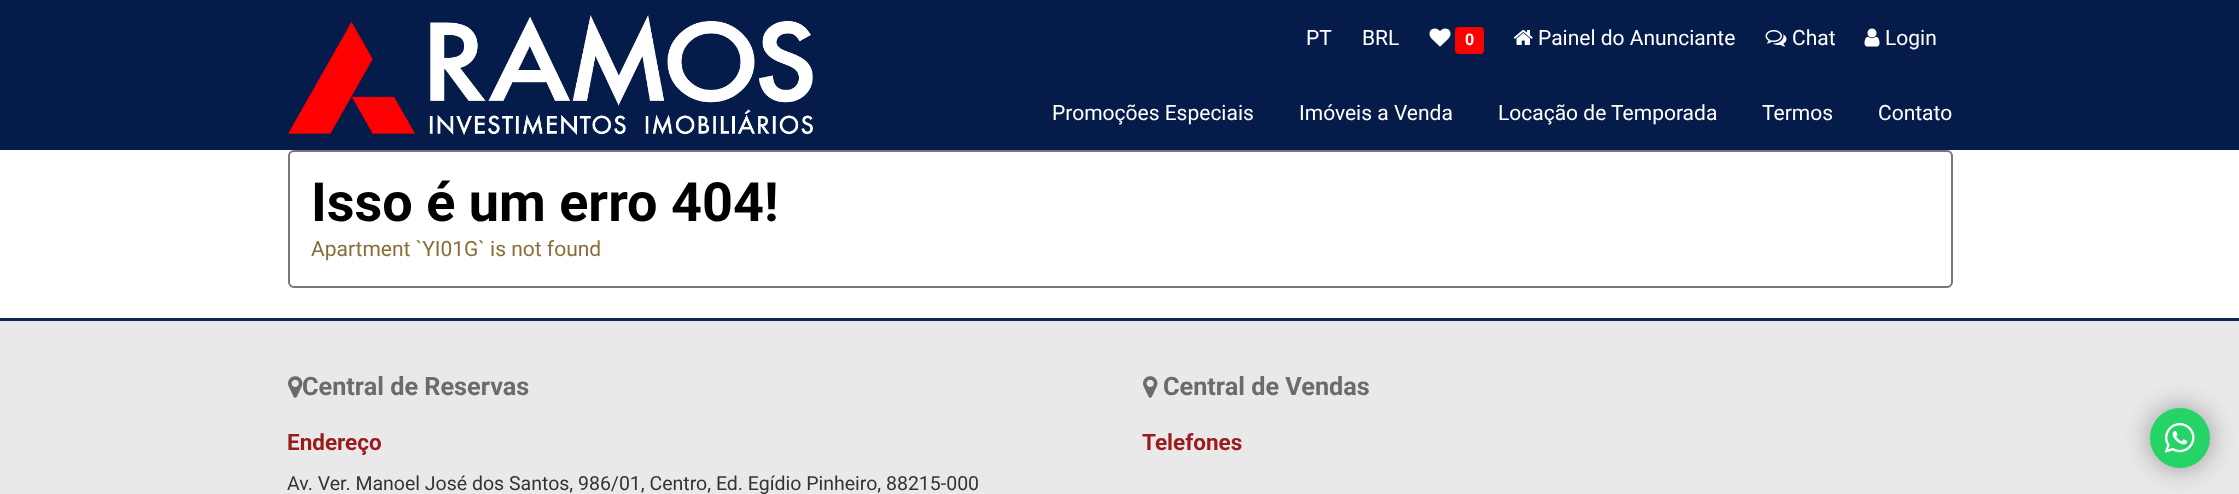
<svg xmlns="http://www.w3.org/2000/svg" width="2239" height="494" viewBox="0 0 2239 494">
  <rect width="100%" height="100%" fill="rgb(255,255,255)"/>
  <rect x="0" y="0" width="2239" height="150" fill="rgb(5,27,74)"/>
  <image x="288" y="15" width="525" height="120" href="pic1.png"/>
  <g font-family="Roboto" font-size="21" fill="rgb(255,255,255)">
    <text x="1306" y="45">PT</text>
    <text x="1362" y="45">BRL</text>
  </g>
  <image x="1429" y="28" width="22" height="19" href="pic2.png"/>
  <rect x="1455" y="27" width="29" height="27" rx="4" fill="rgb(253,0,1)"/>
  <text x="1465" y="45" font-family="Roboto" font-size="16" font-weight="bold" fill="rgb(255,255,255)">0</text>
  <image x="1513" y="30" width="20" height="15" href="pic3.png"/>
  <text x="1538" y="45" font-family="Roboto" font-size="21" fill="rgb(255,255,255)">Painel do Anunciante</text>
  <image x="1765" y="30" width="22" height="17" href="pic4.png"/>
  <text x="1792" y="45" font-family="Roboto" font-size="21" fill="rgb(255,255,255)">Chat</text>
  <image x="1864" y="28" width="16" height="19" href="pic5.png"/>
  <g font-family="Roboto" font-size="21" fill="rgb(255,255,255)">
    <text x="1885" y="45">Login</text>
    <text x="1052" y="120">Promoções Especiais</text>
    <text x="1299" y="120">Imóveis a Venda</text>
    <text x="1498" y="120">Locação de Temporada</text>
    <text x="1762" y="120">Termos</text>
    <text x="1878" y="120">Contato</text>
  </g>
  <rect x="289" y="151" width="1663" height="136" rx="5" fill="none" stroke="rgb(119,119,119)" stroke-width="2"/>
  <text x="311" y="221" font-family="Roboto" font-size="54" font-weight="bold" fill="rgb(0,0,0)">Isso é um erro 404!</text>
  <text x="311" y="256" font-family="Roboto" font-size="21" fill="rgb(138,109,59)">Apartment `YI01G` is not found</text>
  <rect x="0" y="321" width="2239" height="173" fill="rgb(234,233,233)"/>
  <rect x="0" y="318" width="2239" height="3" fill="rgb(13,41,79)"/>
  <image x="288" y="376" width="15" height="22" href="pic6.png"/>
  <text x="302" y="395" font-family="Roboto" font-size="25.25" font-weight="bold" fill="rgb(107,107,107)">Central de Reservas</text>
  <text x="287" y="450" font-family="Roboto" font-size="22.5" font-weight="bold" fill="rgb(153,27,31)">Endereço</text>
  <text x="287" y="490" font-family="Roboto" font-size="19.5" fill="rgb(51,51,51)">Av. Ver. Manoel José dos Santos, 986/01, Centro, Ed. Egídio Pinheiro, 88215-000</text>
  <image x="1143" y="376" width="15" height="22" href="pic6.png"/>
  <text x="1163" y="395" font-family="Roboto" font-size="25.25" font-weight="bold" fill="rgb(107,107,107)">Central de Vendas</text>
  <text x="1142" y="450" font-family="Roboto" font-size="22.5" font-weight="bold" fill="rgb(153,27,31)">Telefones</text>
  <rect x="2150" y="408" width="60" height="60" rx="30" fill="rgb(148,148,148)" filter="blur(13.5px)"/>
  <circle cx="2180" cy="438" r="30" fill="rgb(37,211,102)"/>
  <image x="2165" y="423" width="30" height="30" href="pic7.png"/>
</svg>
